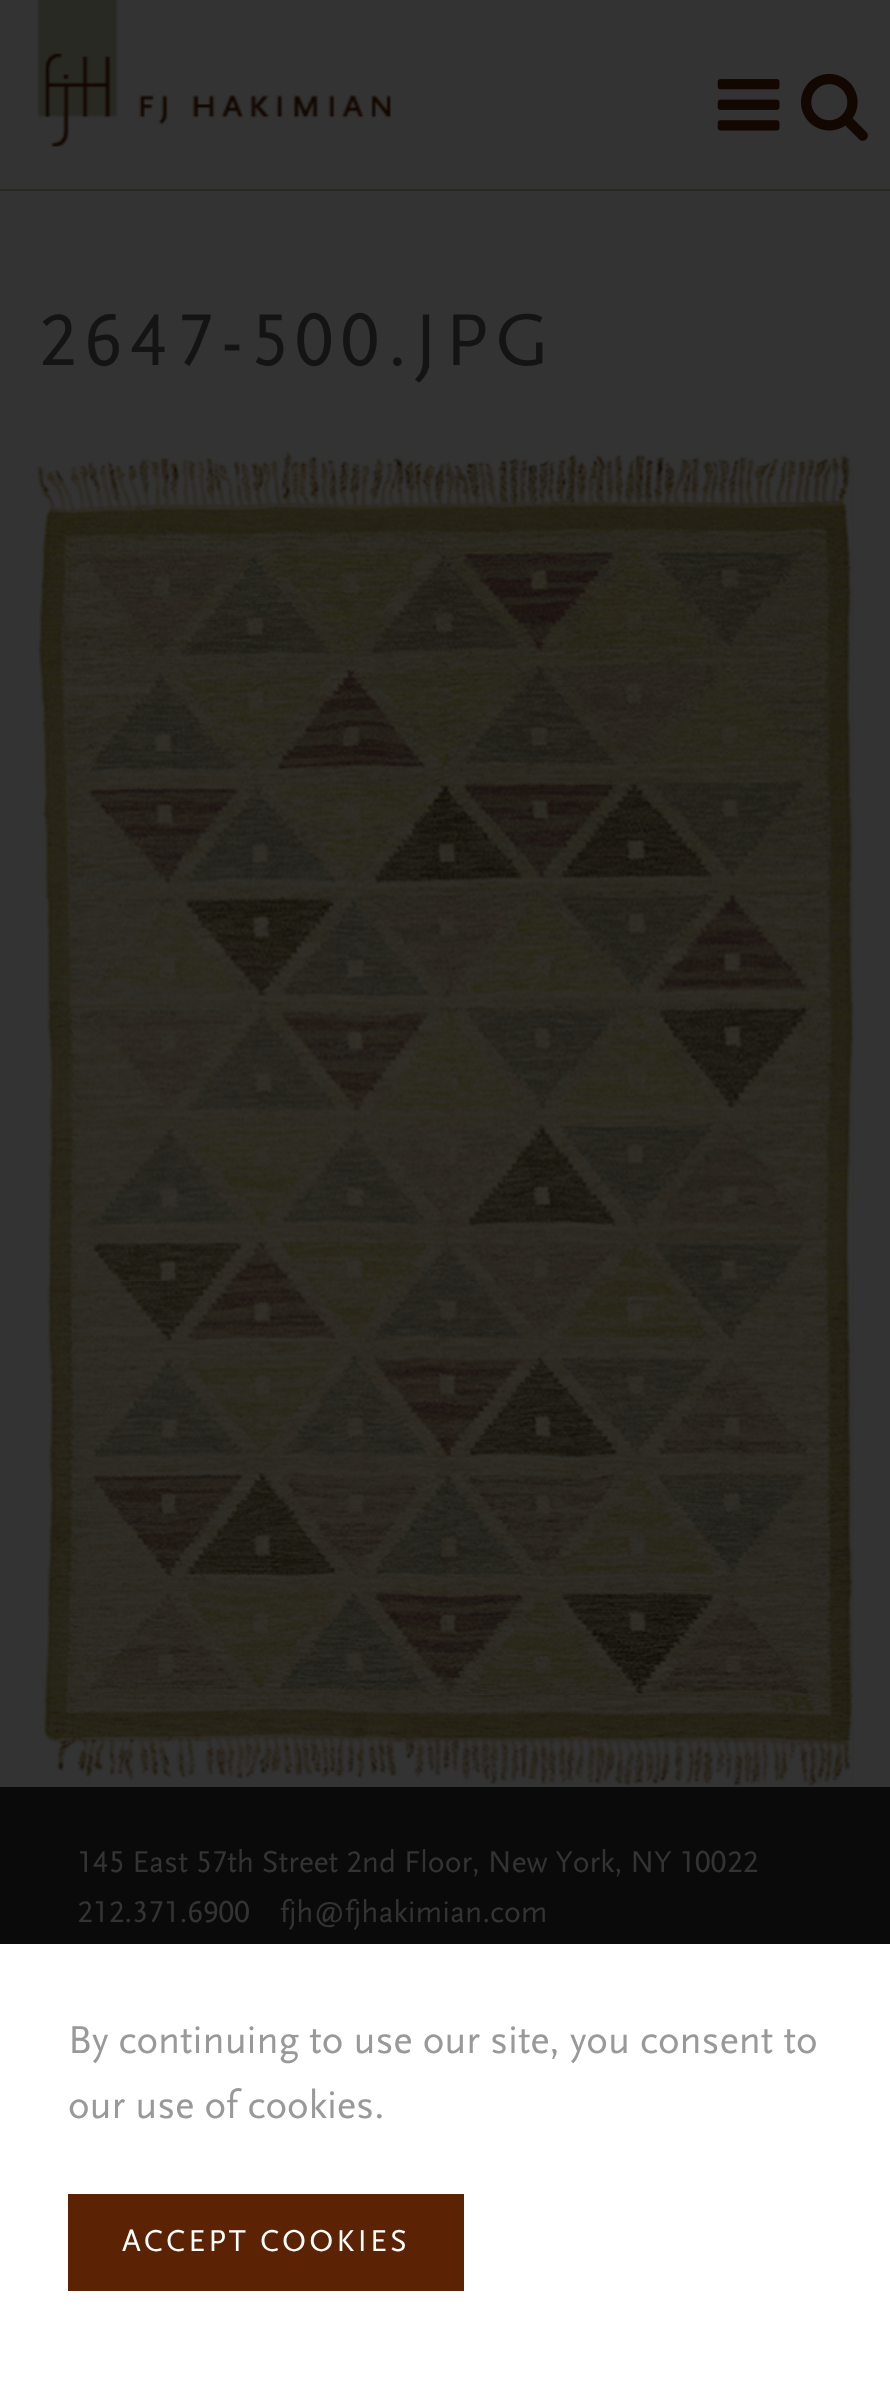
<svg xmlns="http://www.w3.org/2000/svg" width="890" height="2406" viewBox="0 0 890 2406">
  <rect width="100%" height="100%" fill="rgb(51,51,51)"/>
  <rect x="0" y="189" width="890" height="2" fill="rgb(41,41,36)"/>
  <image x="37" y="0" width="81" height="147" href="pic1.png"/>
  <image x="138" y="95" width="253" height="30" href="pic2.png"/>
  <image x="717" y="79" width="63" height="52" href="pic3.png"/>
  <image x="801" y="73" width="67" height="68" href="pic4.png"/>
  <text x="38" y="365" font-family="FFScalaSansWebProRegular" font-size="76.5" letter-spacing="7.6" fill="rgb(20,20,20)">2647-500.JPG</text>
  <image x="37" y="452" width="817" height="1335" href="pic5.png"/>
  <rect x="0" y="1787" width="890" height="157" fill="rgb(10,10,10)"/>
  <g font-family="FFScalaSansWebProRegular" font-size="31.5" fill="rgb(51,51,51)">
    <text>
      <tspan x="77" y="1872">145 East 57th Street 2nd Floor, New York, NY 10022</tspan>
      <tspan x="77" y="1922">212.371.6900</tspan>
    </text>
    <text x="280" y="1922">fjh@fjhakimian.com</text>
  </g>
  <rect x="0" y="1944" width="890" height="462" fill="rgb(255,255,255)"/>
  <g font-family="FFScalaSansWebProRegular" font-size="40.5" fill="rgb(153,153,153)">
    <text>
      <tspan x="68" y="2053">By continuing to use our site, you consent to</tspan>
      <tspan x="68" y="2118">our use of cookies.</tspan>
    </text>
  </g>
  <rect x="68" y="2194" width="396" height="97" fill="rgb(91,35,4)"/>
  <text x="122" y="2251" font-family="FFScalaSansWebProRegular" font-size="31.5" letter-spacing="3.1" fill="rgb(255,255,255)">ACCEPT COOKIES</text>
</svg>
